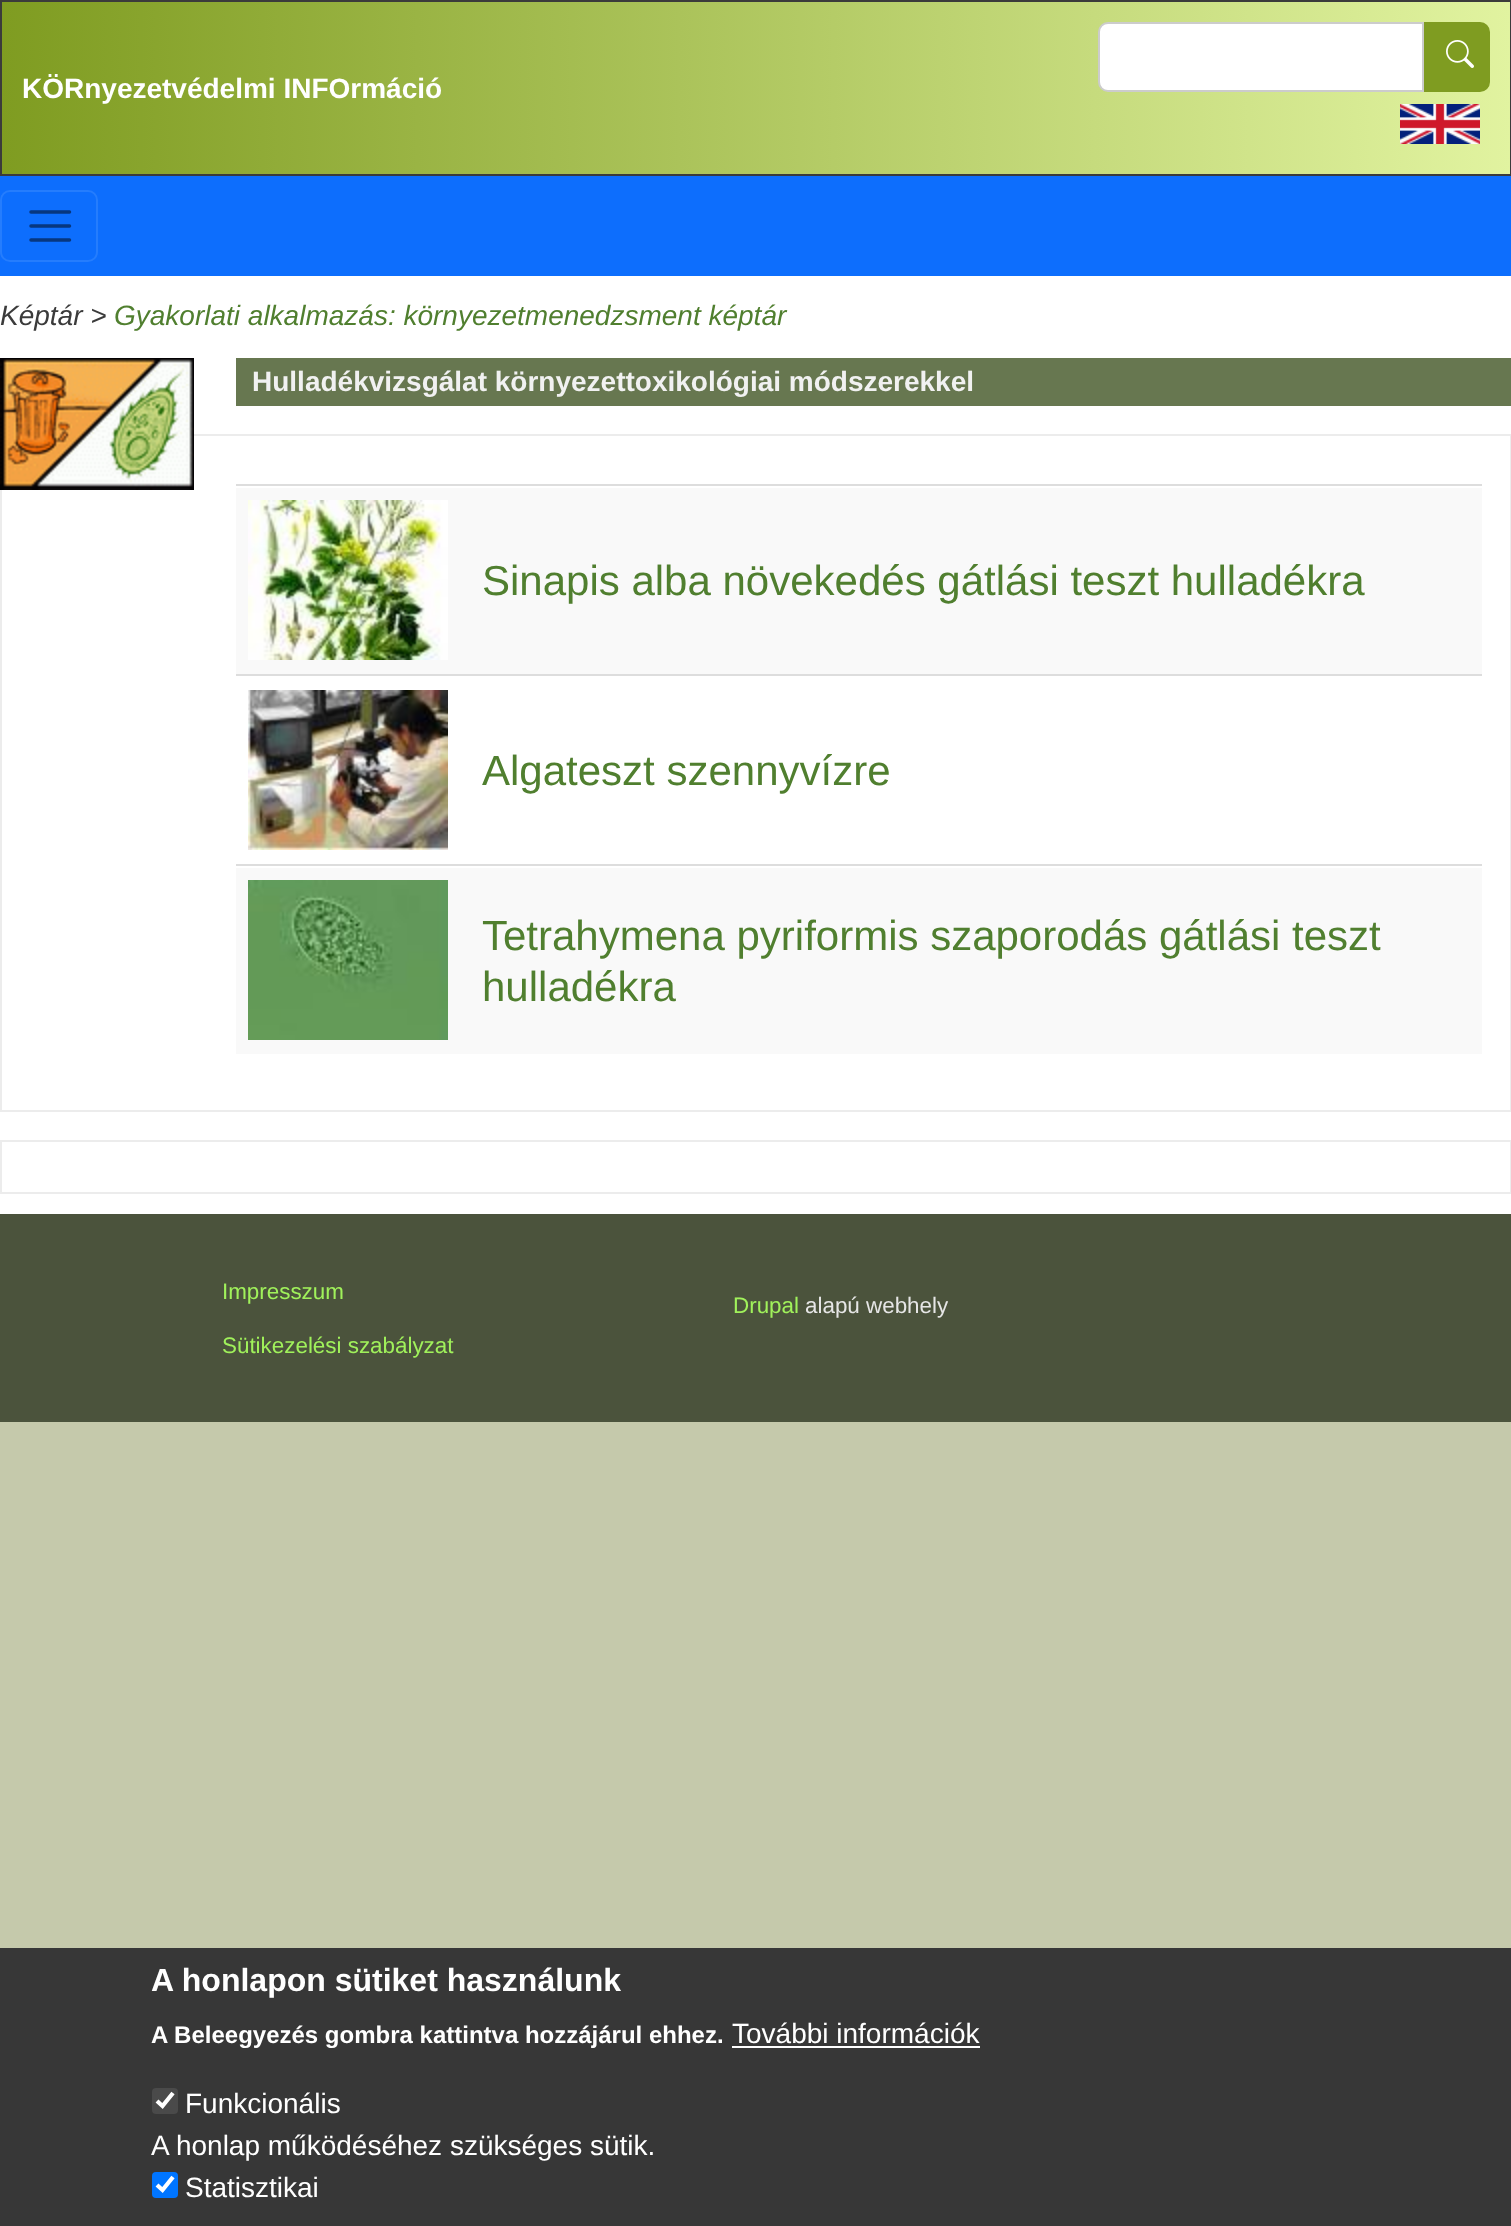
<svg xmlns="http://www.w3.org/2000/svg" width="1511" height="2226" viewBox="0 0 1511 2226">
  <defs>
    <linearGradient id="g1" gradientUnits="userSpaceOnUse" x1="2" y1="88" x2="1510" y2="88"><stop offset="0" stop-color="rgb(127,156,33)"/><stop offset="1" stop-color="rgb(225,243,160)"/></linearGradient>
  </defs>
  <rect width="100%" height="100%" fill="rgb(197,201,171)"/>
  <rect x="0" y="276" width="1511" height="938" fill="rgb(255,255,255)"/>
  <rect x="2" y="2" width="1508" height="172" fill="url(#g1)"/>
  <rect x="1" y="1" width="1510" height="174" fill="none" stroke="rgb(59,59,59)" stroke-width="2"/>
  <text x="22" y="98" font-family="Liberation Sans" font-size="28" font-weight="bold" fill="rgb(255,255,255)">KÖRnyezetvédelmi INFOrmáció</text>
  <path d="M1108 23H1423V91H1108C1103 91 1099 87 1099 82V32C1099 27 1103 23 1108 23Z" fill="rgb(255,255,255)" stroke="rgb(204,204,204)" stroke-width="2"/>
  <path d="M1425 23H1480C1485 23 1489 27 1489 32V82C1489 87 1485 91 1480 91H1425Z" fill="rgb(127,156,33)" stroke="rgb(127,156,33)" stroke-width="2"/>
  <image x="1446" y="40" width="28" height="28" href="pic1.png"/>
  <image x="1400" y="104" width="80" height="40" href="pic2.png"/>
  <rect x="0" y="176" width="1511" height="100" fill="rgb(13,110,253)"/>
  <rect x="1" y="191" width="96" height="70" rx="9" fill="none" stroke="rgb(37,125,253)" stroke-width="2"/>
  <path d="M31 212H69.5M31 226H69.5M31 240H69.5" fill="none" stroke="rgb(7,55,127)" stroke-width="3.5" stroke-linecap="round"/>
  <text x="0" y="325" font-family="Liberation Sans" font-size="28" font-style="italic" fill="rgb(59,59,59)">Képtár &gt;</text>
  <text x="114" y="325" font-family="Liberation Sans" font-size="28" font-style="italic" fill="rgb(80,127,47)">Gyakorlati alkalmazás: környezetmenedzsment képtár</text>
  <rect x="1" y="435" width="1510" height="676" fill="none" stroke="rgb(236,236,236)" stroke-width="2"/>
  <image x="0" y="358" width="194" height="132" href="pic3.png"/>
  <rect x="236" y="358" width="1275" height="48" fill="rgb(103,119,80)"/>
  <text x="252" y="391" font-family="Liberation Sans" font-size="28" font-weight="bold" fill="rgb(241,241,241)">Hulladékvizsgálat környezettoxikológiai módszerekkel</text>
  <rect x="236" y="484" width="1246" height="2" fill="rgb(221,221,221)"/>
  <rect x="236" y="488" width="1246" height="186" fill="rgb(249,249,249)"/>
  <image x="248" y="500" width="200" height="160" href="pic4.png"/>
  <text x="482" y="595" font-family="Liberation Sans" font-size="42" fill="rgb(80,127,47)">Sinapis alba növekedés gátlási teszt hulladékra</text>
  <rect x="236" y="674" width="1246" height="2" fill="rgb(221,221,221)"/>
  <image x="248" y="690" width="200" height="160" href="pic5.png"/>
  <text x="482" y="785" font-family="Liberation Sans" font-size="42" fill="rgb(80,127,47)">Algateszt szennyvízre</text>
  <rect x="236" y="864" width="1246" height="2" fill="rgb(221,221,221)"/>
  <rect x="236" y="868" width="1246" height="186" fill="rgb(249,249,249)"/>
  <image x="248" y="880" width="200" height="160" href="pic6.png"/>
  <g font-family="Liberation Sans" font-size="42" fill="rgb(80,127,47)">
    <text>
      <tspan x="482" y="950">Tetrahymena pyriformis szaporodás gátlási teszt</tspan>
      <tspan x="482" y="1001">hulladékra</tspan>
    </text>
  </g>
  <rect x="1" y="1141" width="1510" height="52" fill="none" stroke="rgb(236,236,236)" stroke-width="2"/>
  <rect x="0" y="1214" width="1511" height="208" fill="rgb(75,83,60)"/>
  <g font-family="Liberation Sans" font-size="22.4" fill="rgb(160,241,91)">
    <text x="222" y="1299">Impresszum</text>
    <text x="222" y="1353">Sütikezelési szabályzat</text>
    <text x="733" y="1313">Drupal</text>
  </g>
  <text x="805" y="1313" font-family="Liberation Sans" font-size="22.4" fill="rgb(230,230,230)">alapú webhely</text>
  <rect x="0" y="1948" width="1511" height="278" fill="rgb(55,55,55)"/>
  <text x="151" y="1991" font-family="Liberation Sans" font-size="32" font-weight="bold" fill="rgb(255,255,255)">A honlapon sütiket használunk</text>
  <text x="151" y="2043" font-family="Liberation Sans" font-size="24" font-weight="bold" fill="rgb(255,255,255)">A Beleegyezés gombra kattintva hozzájárul ehhez.</text>
  <text x="732" y="2043" font-family="Liberation Sans" font-size="28" fill="rgb(255,255,255)">További információk</text>
  <rect x="732" y="2046" width="248" height="2" fill="rgb(255,255,255)"/>
  <rect x="152" y="2088" width="26" height="26" rx="4" fill="rgb(74,74,74)"/>
  <path d="M157 2101L162.5 2106L173 2093" fill="none" stroke="rgb(255,255,255)" stroke-width="4.2"/>
  <g font-family="Liberation Sans" font-size="28" fill="rgb(255,255,255)">
    <text x="185" y="2113">Funkcionális</text>
    <text x="151" y="2155">A honlap működéséhez szükséges sütik.</text>
  </g>
  <rect x="152" y="2172" width="26" height="26" rx="4" fill="rgb(0,117,255)"/>
  <path d="M157 2185L162.5 2190L173 2177" fill="none" stroke="rgb(255,255,255)" stroke-width="4.2"/>
  <text x="185" y="2197" font-family="Liberation Sans" font-size="28" fill="rgb(255,255,255)">Statisztikai</text>
</svg>
